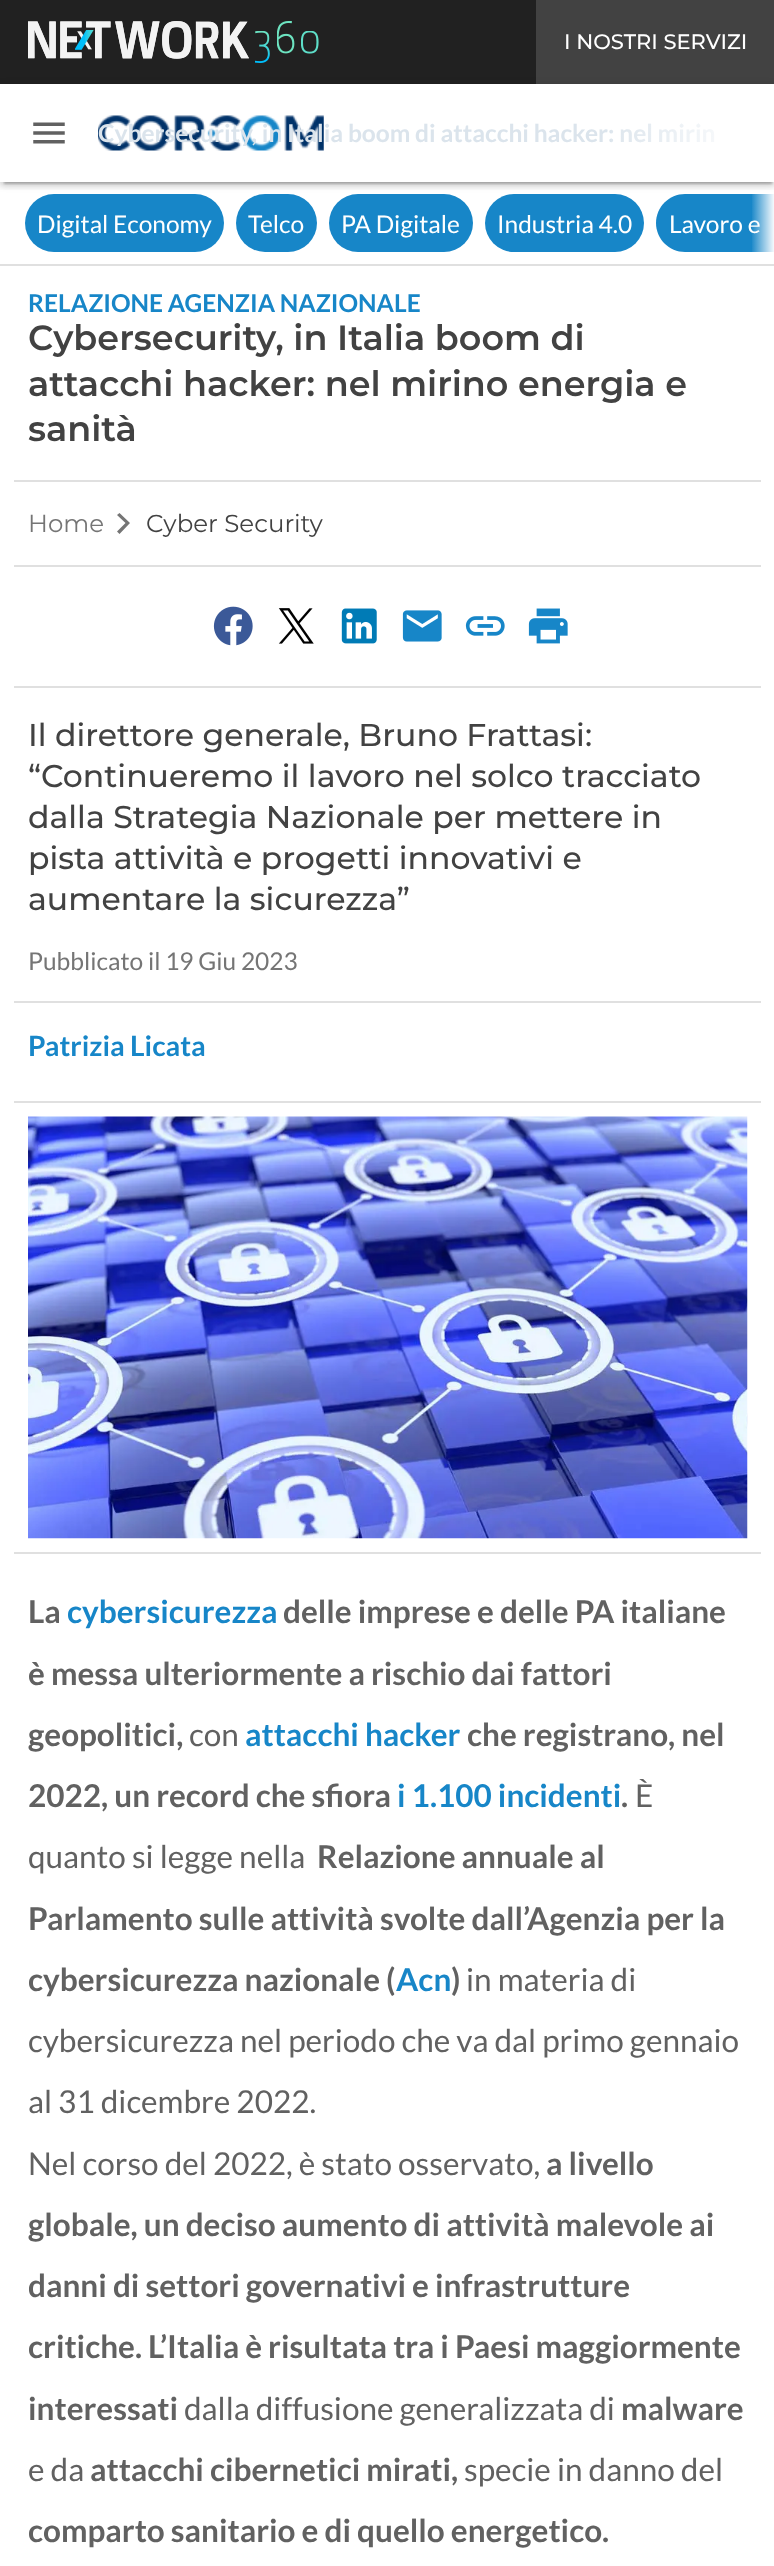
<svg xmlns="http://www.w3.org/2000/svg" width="774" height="2566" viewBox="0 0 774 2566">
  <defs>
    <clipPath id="clip1"><rect x="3" y="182" width="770" height="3"/></clipPath>
    <linearGradient id="g1" gradientUnits="userSpaceOnUse" x1="751" y1="223" x2="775" y2="223"><stop offset="0" stop-color="rgb(255,255,255)" stop-opacity="0"/><stop offset="1" stop-color="rgb(255,255,255)"/></linearGradient>
    <clipPath id="clip2"><path d="M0 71H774V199H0ZM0 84H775V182H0Z" clip-rule="evenodd"/></clipPath>
    <clipPath id="clip3"><rect x="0" y="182" width="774" height="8"/></clipPath>
    <linearGradient id="g2" gradientUnits="userSpaceOnUse" x1="600" y1="133" x2="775" y2="133"><stop offset="0" stop-color="rgb(255,255,255)" stop-opacity="0"/><stop offset="0.9" stop-color="rgb(255,255,255)"/></linearGradient>
  </defs>
  <rect width="100%" height="100%" fill="rgb(255,255,255)"/>
  <rect x="0" y="0" width="536" height="84" fill="rgb(33,33,33)"/>
  <image x="28" y="21" width="291" height="42" href="pic1.png"/>
  <rect x="536" y="0" width="238" height="84" fill="rgb(66,66,66)"/>
  <text x="564" y="49" font-family="Montserrat" font-size="21" font-weight="500" fill="rgb(255,255,255)">I NOSTRI SERVIZI</text>
  <g clip-path="url(#clip1)">
    <rect x="4" y="93" width="768" height="91" fill="rgba(0,0,0,0.2)" filter="blur(1px)"/>
  </g>
  <rect x="25" y="194" width="199" height="58" rx="29" fill="rgb(23,134,200)"/>
  <rect x="236" y="194" width="81" height="58" rx="29" fill="rgb(23,134,200)"/>
  <rect x="329" y="194" width="144" height="58" rx="29" fill="rgb(23,134,200)"/>
  <rect x="485" y="194" width="159" height="58" rx="29" fill="rgb(23,134,200)"/>
  <path d="M685 194H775V252H685C669 252 656 239 656 223C656 207 669 194 685 194Z" fill="rgb(23,134,200)"/>
  <text x="669" y="233" font-family="Lato" font-size="24.5" fill="rgb(255,255,255)">Lavoro e</text>
  <rect x="752" y="194" width="22" height="58" fill="url(#g1)"/>
  <g clip-path="url(#clip2)">
    <rect x="0" y="86" width="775" height="98" fill="rgba(0,0,0,0.12)" filter="blur(4.5px)"/>
  </g>
  <g clip-path="url(#clip3)">
    <rect x="0" y="88" width="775" height="98" fill="rgba(0,0,0,0.14)" filter="blur(3.5px)"/>
  </g>
  <image x="33" y="122" width="32" height="22" href="pic2.png"/>
  <image x="98" y="115" width="226" height="36" href="pic3.png"/>
  <text x="98" y="142" font-family="Lato" font-size="24.5" font-weight="bold" fill="rgb(219,228,236)">Cybersecurity, in Italia boom di attacchi hacker: nel mirin</text>
  <rect x="611" y="124" width="104" height="18" fill="url(#g2)"/>
  <rect x="0" y="264" width="774" height="2" fill="rgb(224,224,224)"/>
  <g font-family="Lato" font-size="24.5" fill="rgb(255,255,255)">
    <text x="37" y="233">Digital Economy</text>
    <text x="248" y="233">Telco</text>
    <text x="341" y="233">PA Digitale</text>
    <text x="497" y="233">Industria 4.0</text>
  </g>
  <text x="28" y="312" font-family="Lato" font-size="24.5" font-weight="bold" fill="rgb(23,134,200)">RELAZIONE AGENZIA NAZIONALE</text>
  <g font-family="Montserrat" font-size="35" font-weight="600" fill="rgb(66,66,66)">
    <text>
      <tspan x="28" y="350">Cybersecurity, in Italia boom di</tspan>
      <tspan x="28" y="396">attacchi hacker: nel mirino energia e</tspan>
      <tspan x="28" y="441">sanità</tspan>
    </text>
  </g>
  <rect x="14" y="480" width="747" height="2" fill="rgb(224,224,224)"/>
  <text x="28" y="532" font-family="Montserrat" font-size="24.5" fill="rgb(117,117,117)">Home</text>
  <path d="M125.5 523L117 515L119.5 513L130 523L119.5 534L117 531.5Z" fill="rgb(117,117,117)"/>
  <text x="146" y="532" font-family="Montserrat" font-size="24.5" fill="rgb(66,66,66)">Cyber Security</text>
  <rect x="14" y="565" width="747" height="2" fill="rgb(224,224,224)"/>
  <rect x="14" y="686" width="747" height="2" fill="rgb(224,224,224)"/>
  <image x="213" y="606" width="40" height="40" href="pic4.png"/>
  <image x="278" y="608" width="36" height="36" href="pic5.png"/>
  <image x="341" y="608" width="36" height="36" href="pic6.png"/>
  <image x="402" y="610" width="40" height="32" href="pic7.png"/>
  <image x="465" y="616" width="40" height="20" href="pic8.png"/>
  <image x="528" y="608" width="40" height="36" href="pic9.png"/>
  <g font-family="Montserrat" font-size="31.5" font-weight="500" fill="rgb(66,66,66)">
    <text>
      <tspan x="28" y="746">Il direttore generale, Bruno Frattasi:</tspan>
      <tspan x="28" y="787">“Continueremo il lavoro nel solco tracciato</tspan>
      <tspan x="28" y="828">dalla Strategia Nazionale per mettere in</tspan>
      <tspan x="28" y="869">pista attività e progetti innovativi e</tspan>
      <tspan x="28" y="910">aumentare la sicurezza”</tspan>
    </text>
  </g>
  <text x="28" y="970" font-family="Lato" font-size="24.5" fill="rgb(117,117,117)">Pubblicato il 19 Giu 2023</text>
  <rect x="14" y="1001" width="747" height="2" fill="rgb(224,224,224)"/>
  <rect x="14" y="1101" width="747" height="2" fill="rgb(224,224,224)"/>
  <text x="28" y="1056" font-family="Lato" font-size="28" font-weight="bold" fill="rgb(23,134,200)">Patrizia Licata</text>
  <image x="28" y="1116" width="720" height="423" href="pic10.png"/>
  <rect x="14" y="1552" width="747" height="2" fill="rgb(224,224,224)"/>
  <text x="28" y="1623" font-family="Lato" font-size="31.5" font-weight="bold" fill="rgb(97,97,97)">La</text>
  <text x="67" y="1623" font-family="Lato" font-size="31.5" font-weight="bold" fill="rgb(23,134,200)">cybersicurezza</text>
  <g font-family="Lato" font-size="31.5" font-weight="bold" fill="rgb(97,97,97)">
    <text x="283" y="1623">delle imprese e delle PA italiane</text>
    <text>
      <tspan x="28" y="1685">è messa ulteriormente a rischio dai fattori</tspan>
      <tspan x="28" y="1746">geopolitici,</tspan>
    </text>
  </g>
  <text x="189" y="1746" font-family="Lato" font-size="31.5" fill="rgb(97,97,97)">con</text>
  <text x="245" y="1746" font-family="Lato" font-size="31.5" font-weight="bold" fill="rgb(23,134,200)">attacchi hacker</text>
  <g font-family="Lato" font-size="31.5" font-weight="bold" fill="rgb(97,97,97)">
    <text x="467" y="1746">che registrano, nel</text>
    <text x="28" y="1807">2022, un record che sfiora</text>
  </g>
  <text x="397" y="1807" font-family="Lato" font-size="31.5" font-weight="bold" fill="rgb(23,134,200)">i 1.100 incidenti</text>
  <text x="621" y="1807" font-family="Lato" font-size="31.5" font-weight="bold" fill="rgb(97,97,97)">.</text>
  <g font-family="Lato" font-size="31.5" fill="rgb(97,97,97)">
    <text x="635" y="1807">È</text>
    <text x="28" y="1868">quanto si legge nella</text>
  </g>
  <g font-family="Lato" font-size="31.5" font-weight="bold" fill="rgb(97,97,97)">
    <text x="317" y="1868">Relazione annuale al</text>
    <text>
      <tspan x="28" y="1930">Parlamento sulle attività svolte dall’Agenzia per la</tspan>
      <tspan x="28" y="1991">cybersicurezza nazionale (</tspan>
    </text>
  </g>
  <text x="396" y="1991" font-family="Lato" font-size="31.5" font-weight="bold" fill="rgb(23,134,200)">Acn</text>
  <text x="451" y="1991" font-family="Lato" font-size="31.5" font-weight="bold" fill="rgb(97,97,97)">)</text>
  <g font-family="Lato" font-size="31.5" fill="rgb(97,97,97)">
    <text x="466" y="1991">in materia di</text>
    <text>
      <tspan x="28" y="2052">cybersicurezza nel periodo che va dal primo gennaio</tspan>
      <tspan x="28" y="2113">al 31 dicembre 2022.</tspan>
      <tspan x="28" y="2175">Nel corso del 2022, è stato osservato,</tspan>
    </text>
  </g>
  <g font-family="Lato" font-size="31.5" font-weight="bold" fill="rgb(97,97,97)">
    <text x="546" y="2175">a livello</text>
    <text>
      <tspan x="28" y="2236">globale, un deciso aumento di attività malevole ai</tspan>
      <tspan x="28" y="2297">danni di settori governativi e infrastrutture</tspan>
      <tspan x="28" y="2358">critiche. L’Italia è risultata tra i Paesi maggiormente</tspan>
      <tspan x="28" y="2420">interessati</tspan>
    </text>
  </g>
  <text x="184" y="2420" font-family="Lato" font-size="31.5" fill="rgb(97,97,97)">dalla diffusione generalizzata di</text>
  <text x="621" y="2420" font-family="Lato" font-size="31.5" font-weight="bold" fill="rgb(97,97,97)">malware</text>
  <text x="28" y="2481" font-family="Lato" font-size="31.5" fill="rgb(97,97,97)">e da</text>
  <text x="90" y="2481" font-family="Lato" font-size="31.5" font-weight="bold" fill="rgb(97,97,97)">attacchi cibernetici mirati,</text>
  <text x="464" y="2481" font-family="Lato" font-size="31.5" fill="rgb(97,97,97)">specie in danno del</text>
  <text x="28" y="2542" font-family="Lato" font-size="31.5" font-weight="bold" fill="rgb(97,97,97)">comparto sanitario e di quello energetico.</text>
</svg>
